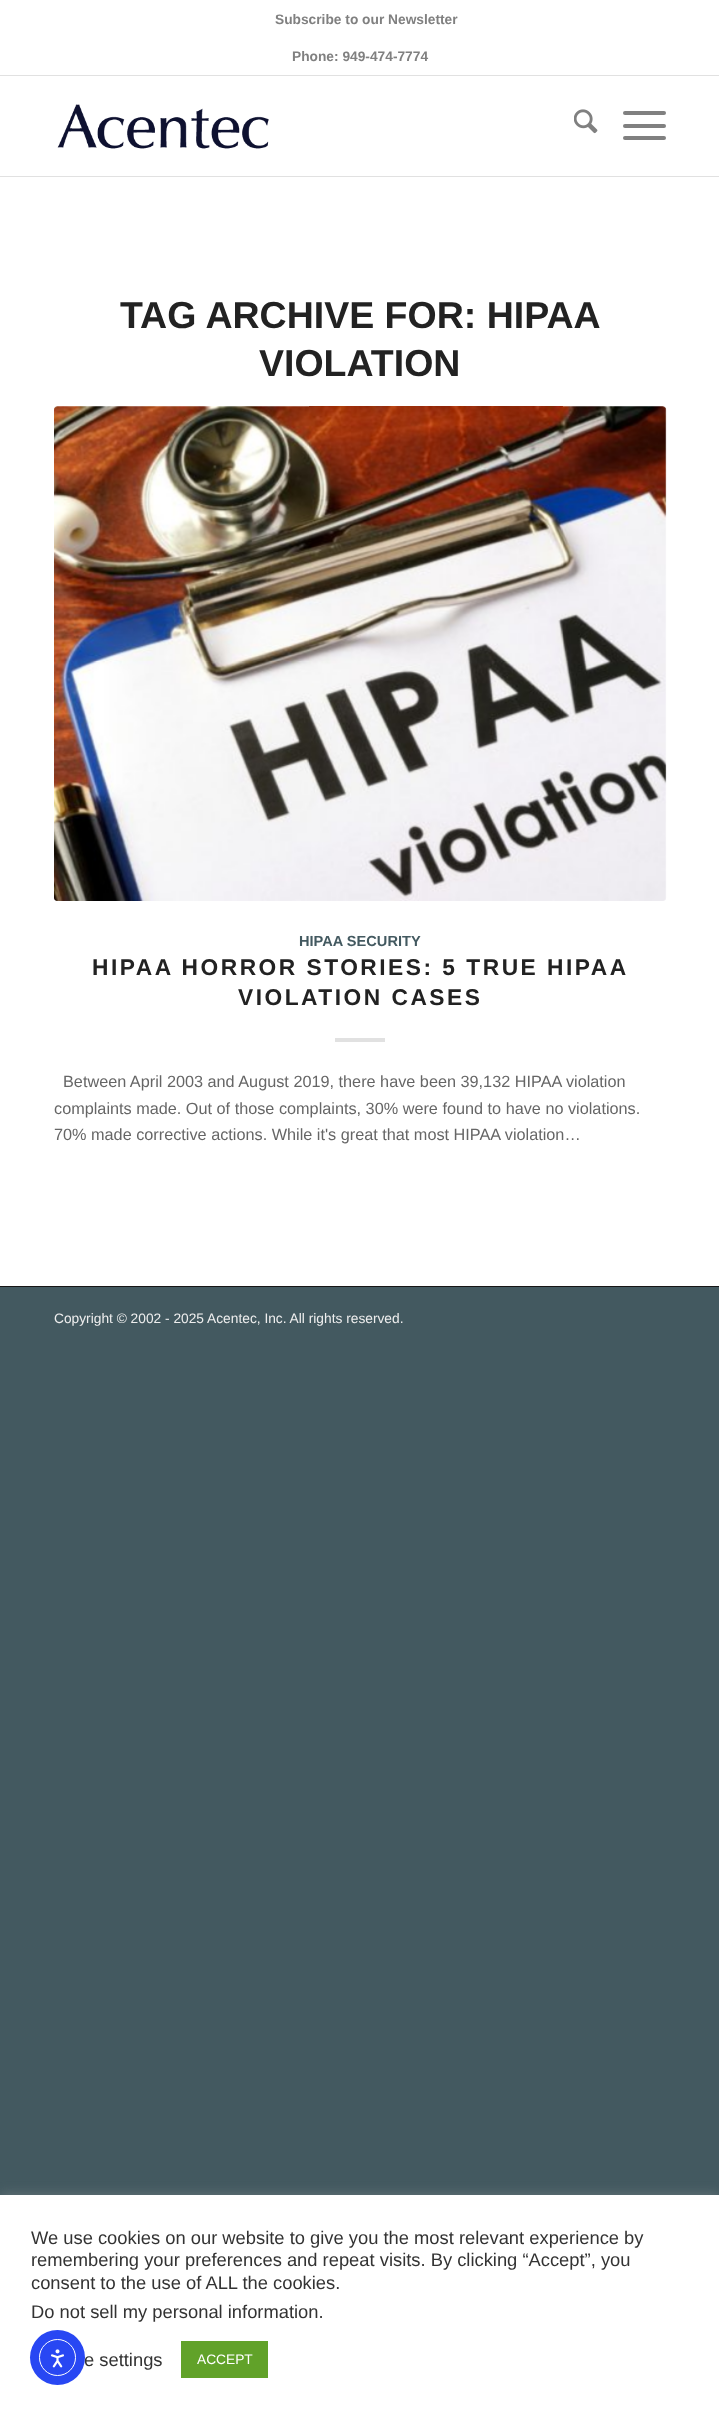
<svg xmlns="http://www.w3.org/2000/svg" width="719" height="2415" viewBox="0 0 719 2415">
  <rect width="100%" height="100%" fill="rgb(67,89,96)"/>
  <rect x="0" y="76" width="719" height="1210" fill="rgb(255,255,255)"/>
  <rect x="0" y="0" width="719" height="75" fill="rgb(255,255,255)"/>
  <rect x="0" y="75" width="719" height="1" fill="rgb(225,225,225)"/>
  <g font-family="Liberation Sans" font-size="13.75" font-weight="bold" fill="rgb(128,128,128)">
    <text x="275" y="24">Subscribe to our Newsletter</text>
    <text x="292" y="61">Phone: 949-474-7774</text>
  </g>
  <rect x="0" y="176" width="719" height="1" fill="rgb(225,225,225)"/>
  <image x="57" y="104" width="212" height="45" href="pic1.png"/>
  <image x="574" y="109" width="24" height="25" href="pic2.png"/>
  <rect x="623" y="124" width="43" height="4" rx="2" fill="rgb(128,128,128)"/>
  <rect x="623" y="111" width="43" height="4" rx="2" fill="rgb(128,128,128)"/>
  <rect x="623" y="136" width="43" height="4" rx="2" fill="rgb(128,128,128)"/>
  <g font-family="Liberation Sans" font-size="37.5" font-weight="bold" fill="rgb(34,34,34)">
    <text x="120" y="328">TAG ARCHIVE FOR: HIPAA</text>
    <text x="259" y="376">VIOLATION</text>
  </g>
  <rect x="54" y="406" width="612" height="495" rx="4" fill="rgb(252,252,252)"/>
  <image x="54" y="406" width="613" height="495" href="pic3.png"/>
  <text x="299" y="946" font-family="Liberation Sans" font-size="14.6" font-weight="bold" fill="rgb(67,89,96)">HIPAA SECURITY</text>
  <g font-family="Liberation Sans" font-size="22.75" font-weight="bold" letter-spacing="2.5" fill="rgb(34,34,34)">
    <text x="92" y="975">HIPAA HORROR STORIES: 5 TRUE HIPAA</text>
    <text x="238" y="1005">VIOLATION CASES</text>
  </g>
  <rect x="335" y="1038" width="50" height="4" fill="rgb(225,225,225)"/>
  <g font-family="Liberation Sans" font-size="16.25" fill="rgb(102,102,102)">
    <text x="63" y="1087">Between April 2003 and August 2019, there have been 39,132 HIPAA violation</text>
    <text>
      <tspan x="54" y="1114">complaints made. Out of those complaints, 30% were found to have no violations.</tspan>
      <tspan x="54" y="1140">70% made corrective actions. While it's great that most HIPAA violation…</tspan>
    </text>
  </g>
  <rect x="0" y="1286" width="719" height="1" fill="rgb(22,22,22)"/>
  <text x="54" y="1323" font-family="Liberation Sans" font-size="13.75" fill="rgb(238,238,238)">Copyright © 2002 - 2025 Acentec, Inc. All rights reserved.</text>
  <rect x="0" y="2194" width="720" height="220" fill="rgba(172,171,171,0.3)" filter="blur(6px)"/>
  <rect x="0" y="2195" width="719" height="220" fill="rgb(255,255,255)"/>
  <g font-family="Liberation Sans" font-size="18.35" fill="rgb(51,51,51)">
    <text>
      <tspan x="31" y="2244">We use cookies on our website to give you the most relevant experience by</tspan>
      <tspan x="31" y="2266">remembering your preferences and repeat visits. By clicking “Accept”, you</tspan>
      <tspan x="31" y="2289">consent to the use of ALL the cookies.</tspan>
      <tspan x="31" y="2318">Do not sell my personal information.</tspan>
    </text>
    <text x="84" y="2366">e settings</text>
  </g>
  <rect x="181" y="2341" width="87" height="37" fill="rgb(97,162,41)"/>
  <text x="197" y="2364" font-family="Liberation Sans" font-size="13.75" fill="rgb(255,255,255)">ACCEPT</text>
  <circle cx="57.5" cy="2357.5" r="27.5" fill="rgb(40,71,243)"/>
  <circle cx="57.5" cy="2357.5" r="18" fill="none" stroke="rgb(255,255,255)"/>
  <image x="50" y="2349" width="14" height="19" href="pic4.png"/>
</svg>
